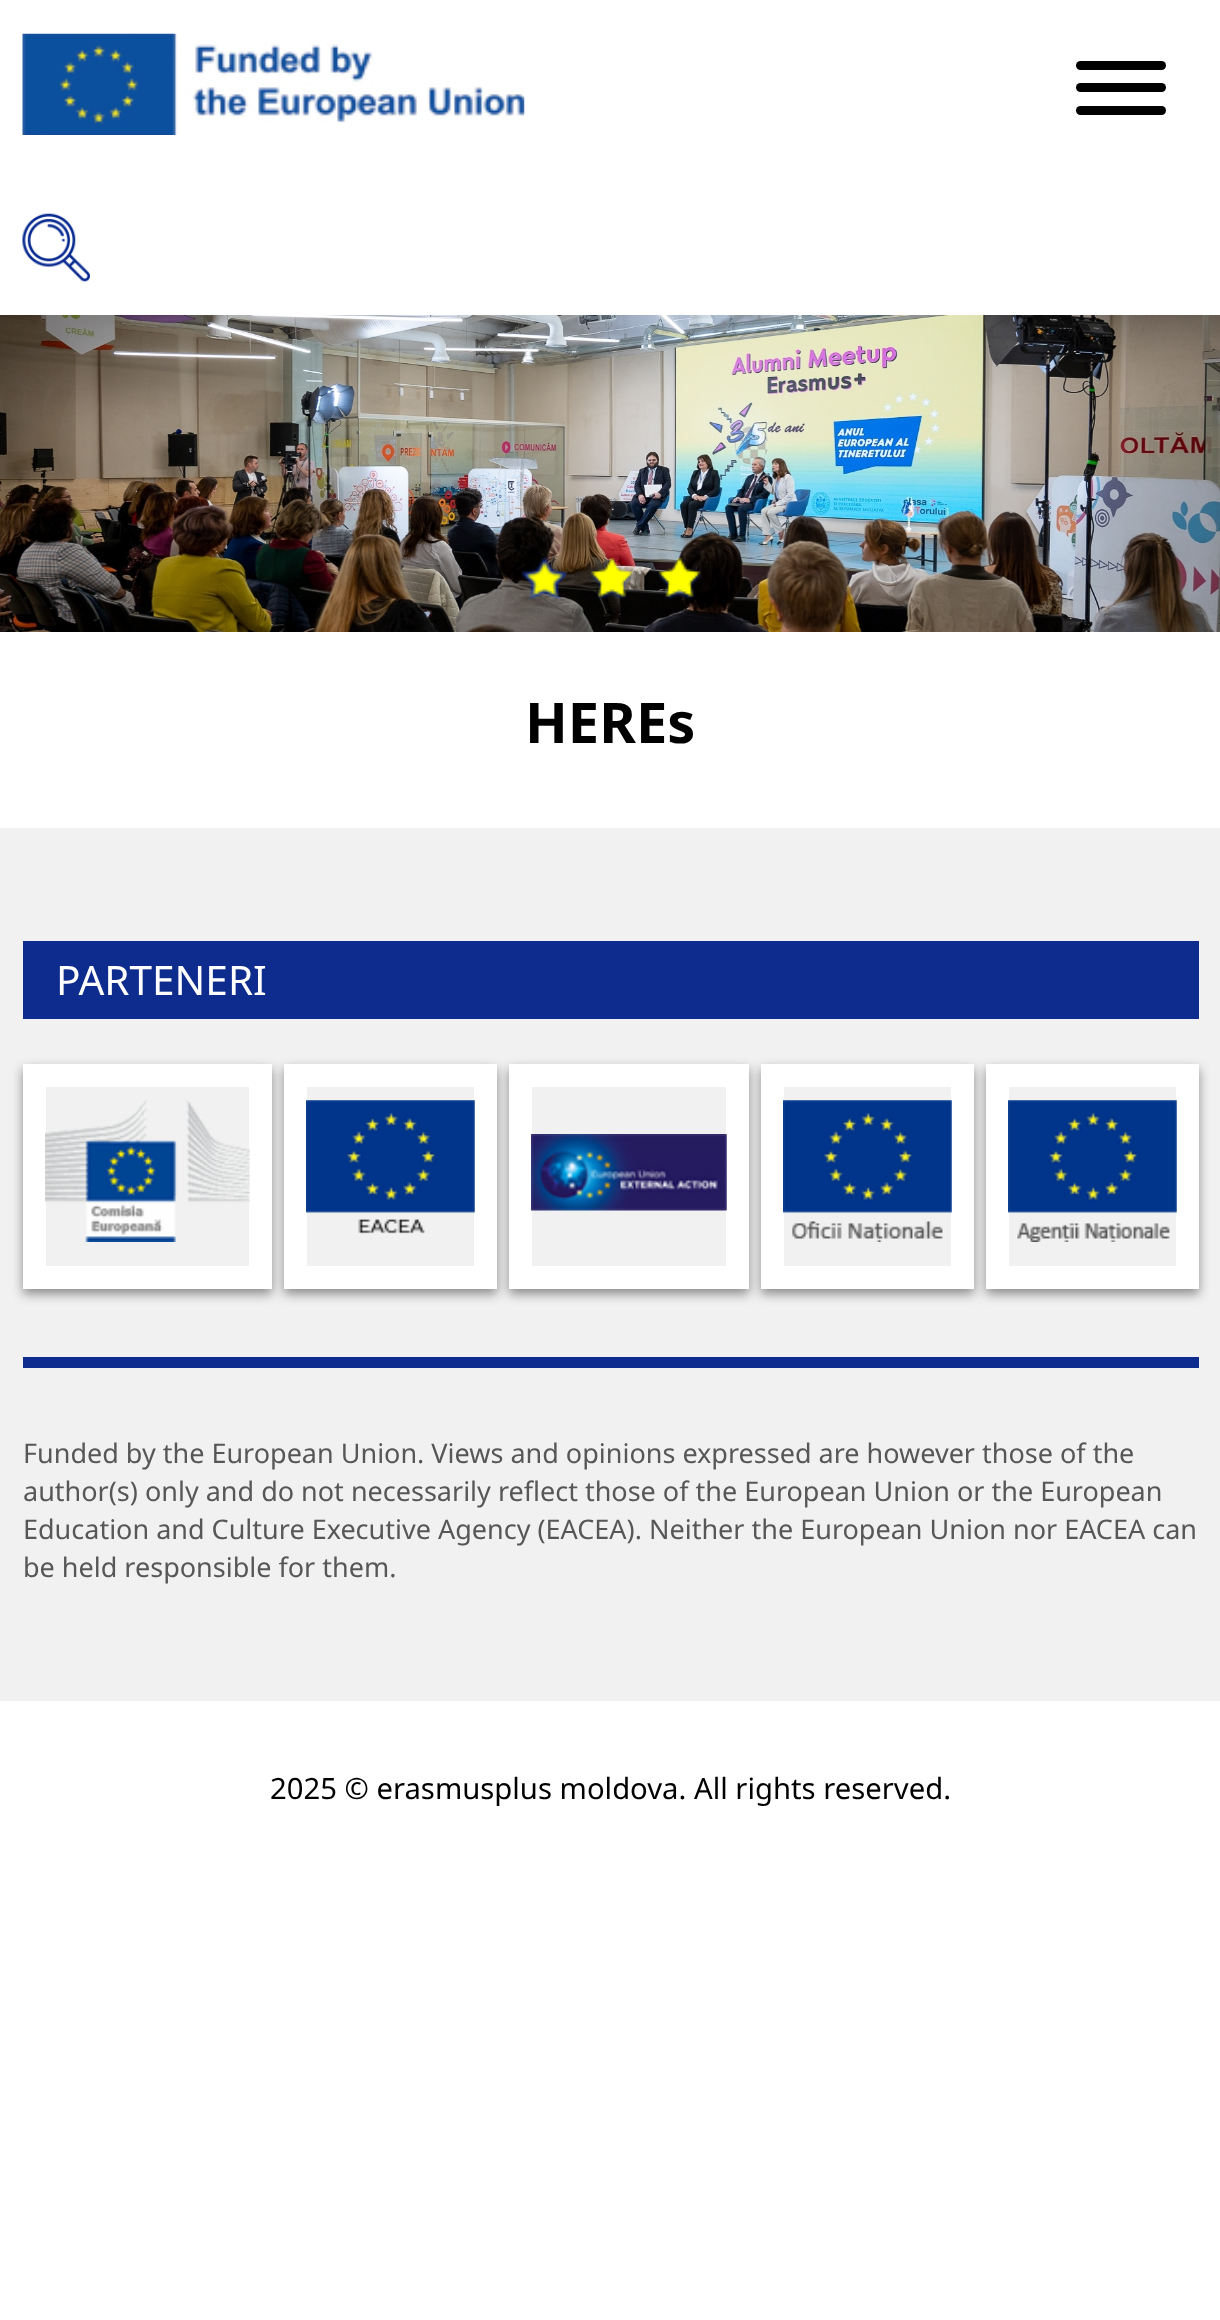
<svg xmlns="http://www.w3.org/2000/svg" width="1220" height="2320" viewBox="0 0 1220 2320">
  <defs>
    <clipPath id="clip1"><path d="M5 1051H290V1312H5ZM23 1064H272V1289H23Z" clip-rule="evenodd"/></clipPath>
    <clipPath id="clip2"><path d="M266 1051H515V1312H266ZM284 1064H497V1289H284Z" clip-rule="evenodd"/></clipPath>
    <clipPath id="clip3"><path d="M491 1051H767V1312H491ZM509 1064H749V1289H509Z" clip-rule="evenodd"/></clipPath>
    <clipPath id="clip4"><path d="M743 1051H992V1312H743ZM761 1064H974V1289H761Z" clip-rule="evenodd"/></clipPath>
    <clipPath id="clip5"><path d="M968 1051H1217V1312H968ZM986 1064H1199V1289H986Z" clip-rule="evenodd"/></clipPath>
  </defs>
  <rect width="100%" height="100%" fill="rgb(255,255,255)"/>
  <rect x="1076" y="83" width="90" height="9" rx="4.5" fill="rgb(0,0,0)"/>
  <rect x="1076" y="61" width="90" height="9" rx="4.5" fill="rgb(0,0,0)"/>
  <rect x="1076" y="106" width="90" height="9" rx="4.5" fill="rgb(0,0,0)"/>
  <image x="22" y="33" width="503" height="102" href="pic1.png"/>
  <image x="22" y="213" width="68" height="69" href="pic2.png"/>
  <image x="0" y="315" width="1220" height="317" href="pic3.png"/>
  <image x="522" y="558" width="45" height="41" href="pic4.png"/>
  <image x="590" y="558" width="44" height="41" href="pic5.png"/>
  <image x="657" y="558" width="45" height="41" href="pic6.png"/>
  <text x="525" y="743" font-family="Noto Sans" font-size="56" font-weight="bold" fill="rgb(0,0,0)">HEREs</text>
  <rect x="0" y="828" width="1220" height="873" fill="rgb(241,241,241)"/>
  <rect x="23" y="941" width="1176" height="78" fill="rgb(14,44,142)"/>
  <text x="56" y="995" font-family="Noto Sans" font-size="40.5" fill="rgb(255,255,255)">PARTENERI</text>
  <rect x="23" y="1357" width="1176" height="11" fill="rgb(14,44,142)"/>
  <g clip-path="url(#clip1)">
    <rect x="23" y="1069" width="249" height="225" fill="rgba(37,37,37,0.5)" filter="blur(5.5px)"/>
  </g>
  <rect x="34.5" y="1075.5" width="226" height="202" fill="none" stroke="rgb(255,255,255)" stroke-width="23"/>
  <image x="45" y="1100" width="205" height="142" href="pic7.png"/>
  <g clip-path="url(#clip2)">
    <rect x="284" y="1069" width="213" height="225" fill="rgba(37,37,37,0.5)" filter="blur(5.5px)"/>
  </g>
  <rect x="295.5" y="1075.5" width="190" height="202" fill="none" stroke="rgb(255,255,255)" stroke-width="23"/>
  <image x="306" y="1100" width="169" height="134" href="pic8.png"/>
  <g clip-path="url(#clip3)">
    <rect x="509" y="1069" width="240" height="225" fill="rgba(37,37,37,0.5)" filter="blur(5.5px)"/>
  </g>
  <rect x="520.5" y="1075.5" width="217" height="202" fill="none" stroke="rgb(255,255,255)" stroke-width="23"/>
  <image x="531" y="1134" width="196" height="77" href="pic9.png"/>
  <g clip-path="url(#clip4)">
    <rect x="761" y="1069" width="213" height="225" fill="rgba(37,37,37,0.5)" filter="blur(5.5px)"/>
  </g>
  <rect x="772.5" y="1075.5" width="190" height="202" fill="none" stroke="rgb(255,255,255)" stroke-width="23"/>
  <image x="783" y="1100" width="169" height="142" href="pic10.png"/>
  <g clip-path="url(#clip5)">
    <rect x="986" y="1069" width="213" height="225" fill="rgba(37,37,37,0.5)" filter="blur(5.5px)"/>
  </g>
  <rect x="997.5" y="1075.5" width="190" height="202" fill="none" stroke="rgb(255,255,255)" stroke-width="23"/>
  <image x="1008" y="1100" width="169" height="142" href="pic11.png"/>
  <g font-family="Noto Sans" font-size="27" fill="rgb(87,87,87)">
    <text>
      <tspan x="23" y="1463">Funded by the European Union. Views and opinions expressed are however those of the</tspan>
      <tspan x="23" y="1501">author(s) only and do not necessarily reflect those of the European Union or the European</tspan>
      <tspan x="23" y="1539">Education and Culture Executive Agency (EACEA). Neither the European Union nor EACEA can</tspan>
      <tspan x="23" y="1577">be held responsible for them.</tspan>
    </text>
  </g>
  <text x="270" y="1799" font-family="Noto Sans" font-size="29.25" fill="rgb(0,0,0)">2025 © erasmusplus moldova. All rights reserved.</text>
</svg>
